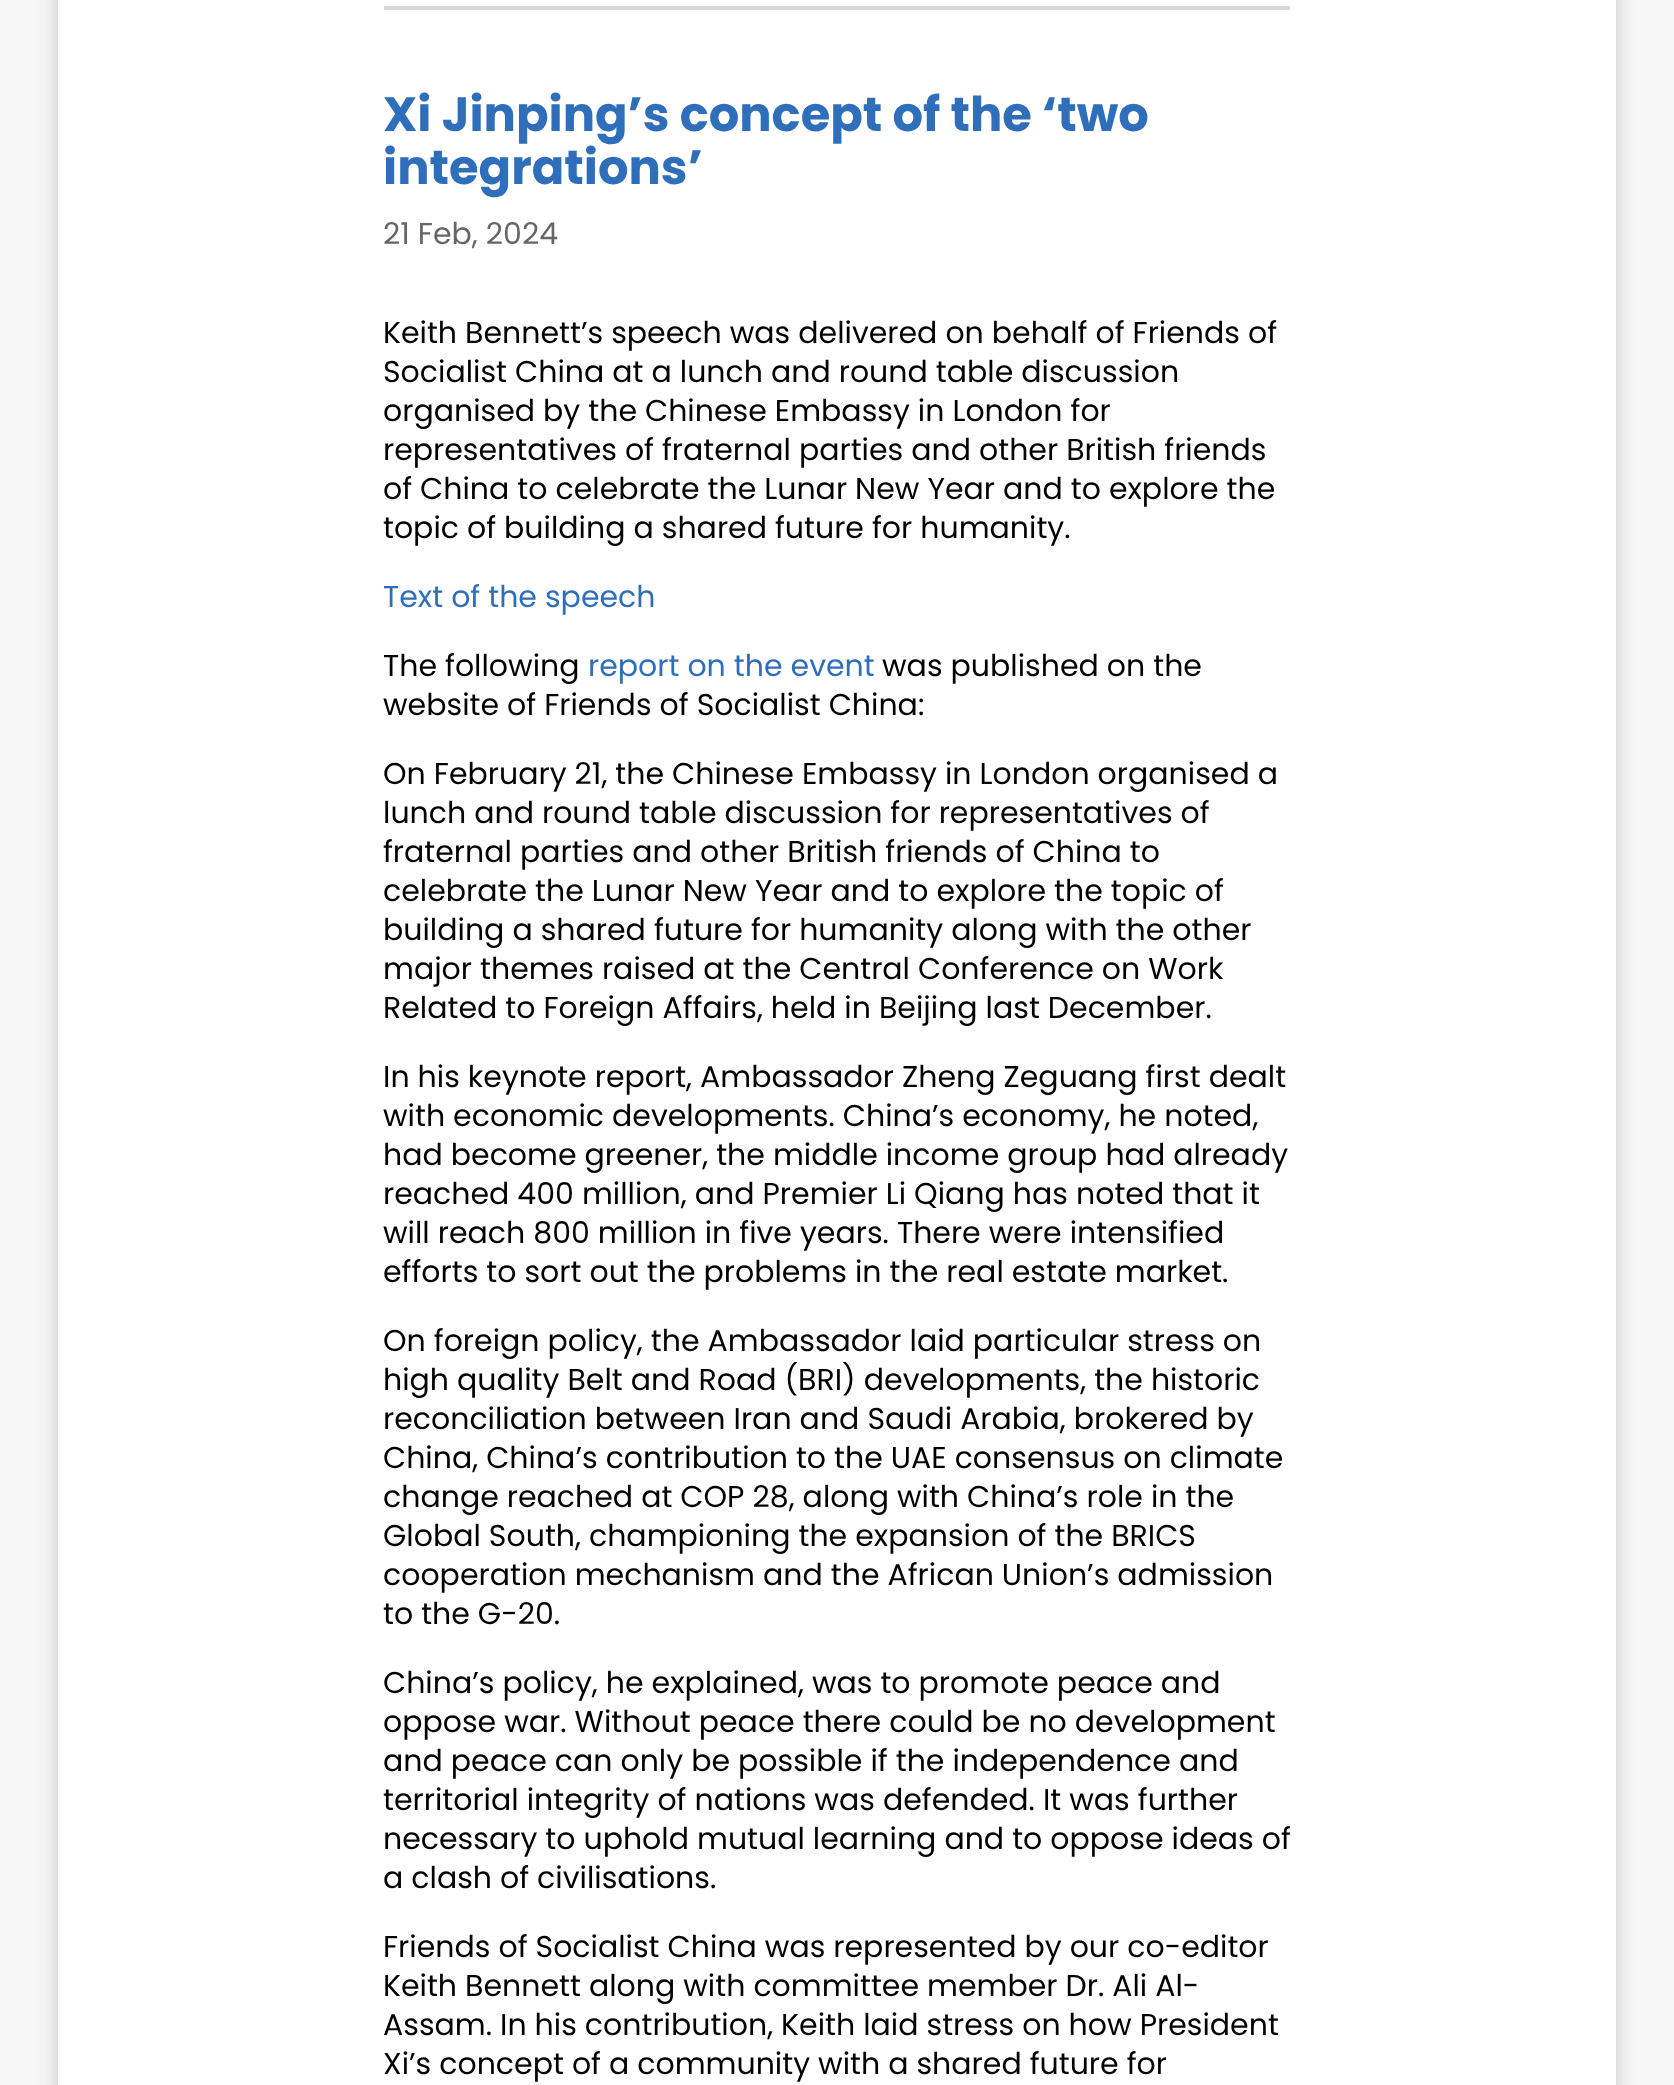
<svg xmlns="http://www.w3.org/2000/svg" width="1674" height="2085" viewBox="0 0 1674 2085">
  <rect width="100%" height="100%" fill="rgb(247,247,247)"/>
  <rect x="58" y="-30" width="1558" height="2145" fill="rgba(0,0,0,0.2)" filter="blur(10px)"/>
  <rect x="58" y="0" width="1558" height="2085" fill="rgb(255,255,255)"/>
  <rect x="384" y="6" width="906" height="4" fill="rgb(216,216,216)"/>
  <g font-family="Poppins" font-size="48" font-weight="bold" fill="rgb(47,110,186)">
    <text>
      <tspan x="383" y="131">Xi Jinping’s concept of the ‘two</tspan>
      <tspan x="383" y="184">integrations’</tspan>
    </text>
  </g>
  <text x="383" y="244" font-family="Poppins" font-size="30" fill="rgb(102,102,102)">21 Feb, 2024</text>
  <g font-family="Poppins" font-size="30" fill="rgb(0,0,0)">
    <text>
      <tspan x="383" y="343">Keith Bennett’s speech was delivered on behalf of Friends of</tspan>
      <tspan x="383" y="382">Socialist China at a lunch and round table discussion</tspan>
      <tspan x="383" y="421">organised by the Chinese Embassy in London for</tspan>
      <tspan x="383" y="460">representatives of fraternal parties and other British friends</tspan>
      <tspan x="383" y="499">of China to celebrate the Lunar New Year and to explore the</tspan>
      <tspan x="383" y="538">topic of building a shared future for humanity.</tspan>
    </text>
  </g>
  <text x="383" y="607" font-family="Poppins" font-size="30" fill="rgb(47,110,186)">Text of the speech</text>
  <text x="383" y="676" font-family="Poppins" font-size="30" fill="rgb(0,0,0)">The following</text>
  <text x="588" y="676" font-family="Poppins" font-size="30" fill="rgb(47,110,186)">report on the event</text>
  <g font-family="Poppins" font-size="30" fill="rgb(0,0,0)">
    <text x="882" y="676">was published on the</text>
    <text x="383" y="715">website of Friends of Socialist China:</text>
    <text>
      <tspan x="383" y="784">On February 21, the Chinese Embassy in London organised a</tspan>
      <tspan x="383" y="823">lunch and round table discussion for representatives of</tspan>
      <tspan x="383" y="862">fraternal parties and other British friends of China to</tspan>
      <tspan x="383" y="901">celebrate the Lunar New Year and to explore the topic of</tspan>
      <tspan x="383" y="940">building a shared future for humanity along with the other</tspan>
      <tspan x="383" y="979">major themes raised at the Central Conference on Work</tspan>
      <tspan x="383" y="1018">Related to Foreign Affairs, held in Beijing last December.</tspan>
    </text>
    <text>
      <tspan x="383" y="1087">In his keynote report, Ambassador Zheng Zeguang first dealt</tspan>
      <tspan x="383" y="1126">with economic developments. China’s economy, he noted,</tspan>
      <tspan x="383" y="1165">had become greener, the middle income group had already</tspan>
      <tspan x="383" y="1204">reached 400 million, and Premier Li Qiang has noted that it</tspan>
      <tspan x="383" y="1243">will reach 800 million in five years. There were intensified</tspan>
      <tspan x="383" y="1282">efforts to sort out the problems in the real estate market.</tspan>
    </text>
    <text>
      <tspan x="383" y="1351">On foreign policy, the Ambassador laid particular stress on</tspan>
      <tspan x="383" y="1390">high quality Belt and Road (BRI) developments, the historic</tspan>
      <tspan x="383" y="1429">reconciliation between Iran and Saudi Arabia, brokered by</tspan>
      <tspan x="383" y="1468">China, China’s contribution to the UAE consensus on climate</tspan>
      <tspan x="383" y="1507">change reached at COP 28, along with China’s role in the</tspan>
      <tspan x="383" y="1546">Global South, championing the expansion of the BRICS</tspan>
      <tspan x="383" y="1585">cooperation mechanism and the African Union’s admission</tspan>
      <tspan x="383" y="1624">to the G-20.</tspan>
    </text>
    <text>
      <tspan x="383" y="1693">China’s policy, he explained, was to promote peace and</tspan>
      <tspan x="383" y="1732">oppose war. Without peace there could be no development</tspan>
      <tspan x="383" y="1771">and peace can only be possible if the independence and</tspan>
      <tspan x="383" y="1810">territorial integrity of nations was defended. It was further</tspan>
      <tspan x="383" y="1849">necessary to uphold mutual learning and to oppose ideas of</tspan>
      <tspan x="383" y="1888">a clash of civilisations.</tspan>
    </text>
    <text>
      <tspan x="383" y="1957">Friends of Socialist China was represented by our co-editor</tspan>
      <tspan x="383" y="1996">Keith Bennett along with committee member Dr. Ali Al-</tspan>
      <tspan x="383" y="2035">Assam. In his contribution, Keith laid stress on how President</tspan>
      <tspan x="383" y="2074">Xi’s concept of a community with a shared future for</tspan>
    </text>
  </g>
</svg>
